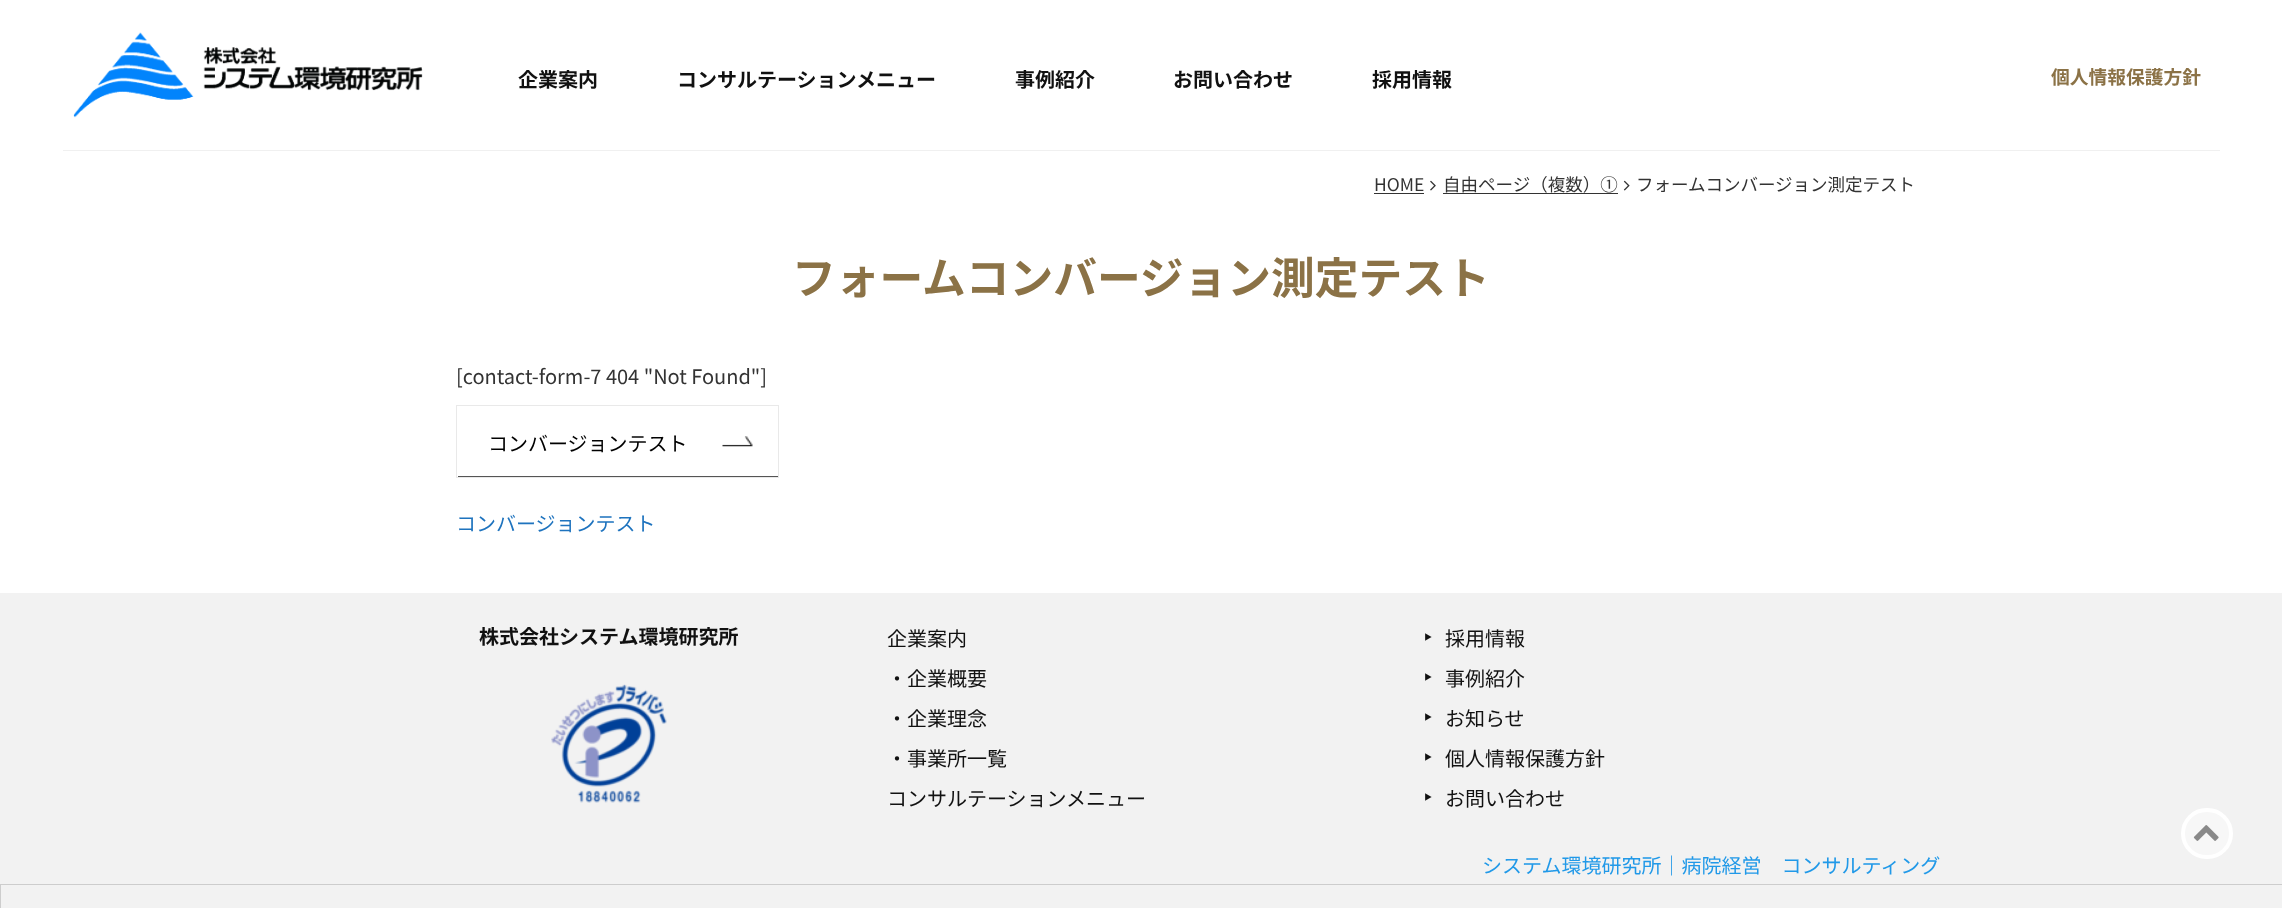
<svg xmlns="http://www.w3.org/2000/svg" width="2282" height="908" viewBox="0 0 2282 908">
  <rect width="100%" height="100%" fill="rgb(255,255,255)"/>
  <rect x="63" y="150" width="2157" height="1" fill="rgb(240,240,240)"/>
  <image x="73" y="32" width="350" height="86" href="pic1.png"/>
  <g font-family="Noto Sans JP" font-size="20" font-weight="bold" fill="rgb(17,17,17)">
    <text x="518" y="87">企業案内</text>
    <text x="677" y="87">コンサルテーションメニュー</text>
    <text x="1015" y="87">事例紹介</text>
    <text x="1173" y="87">お問い合わせ</text>
    <text x="1372" y="87">採用情報</text>
  </g>
  <text x="2051" y="84" font-family="Noto Sans JP" font-size="18.75" font-weight="bold" fill="rgb(139,114,70)">個人情報保護方針</text>
  <text x="1374" y="191" font-family="Noto Sans JP" font-size="17.5" fill="rgb(51,51,51)">HOME</text>
  <rect x="1374" y="193" width="50" height="1" fill="rgb(51,51,51)"/>
  <image x="1430" y="180" width="6" height="11" href="pic2.png"/>
  <text x="1443" y="191" font-family="Noto Sans JP" font-size="17.5" fill="rgb(51,51,51)">自由ページ（複数）①</text>
  <rect x="1443" y="193" width="175" height="1" fill="rgb(51,51,51)"/>
  <image x="1623" y="180" width="7" height="11" href="pic3.png"/>
  <text x="1636" y="191" font-family="Noto Sans JP" font-size="17.5" fill="rgb(51,51,51)">フォームコンバージョン測定テスト</text>
  <text x="792" y="294" font-family="Noto Sans JP" font-size="43.75" font-weight="bold" fill="rgb(139,114,70)">フォームコンバージョン測定テスト</text>
  <text x="456" y="384" font-family="Noto Sans JP" font-size="20" fill="rgb(51,51,51)">[contact-form-7 404 "Not Found"]</text>
  <rect x="456.5" y="405.5" width="322" height="72" fill="none" stroke="rgb(233,233,233)"/>
  <text x="488" y="451" font-family="Noto Sans JP" font-size="20" fill="rgb(0,0,0)">コンバージョンテスト</text>
  <image x="722" y="436" width="31" height="11" href="pic4.png"/>
  <rect x="458" y="476" width="320" height="1" fill="rgb(85,85,85)"/>
  <text x="456" y="531" font-family="Noto Sans JP" font-size="20" fill="rgb(30,115,190)">コンバージョンテスト</text>
  <rect x="0" y="593" width="2282" height="315" fill="rgb(242,242,242)"/>
  <text x="479" y="644" font-family="Noto Sans JP" font-size="20" font-weight="bold" fill="rgb(17,17,17)">株式会社システム環境研究所</text>
  <image x="551" y="684" width="116" height="119" href="pic5.png"/>
  <g font-family="Noto Sans JP" font-size="20" fill="rgb(17,17,17)">
    <text x="887" y="646">企業案内</text>
    <text x="887" y="686">・企業概要</text>
    <text x="887" y="726">・企業理念</text>
    <text x="887" y="766">・事業所一覧</text>
    <text x="887" y="806">コンサルテーションメニュー</text>
  </g>
  <text x="1425" y="633" transform="rotate(90 1425 633)" font-family="Noto Sans JP" font-size="8" fill="rgb(17,17,17)">▲</text>
  <text x="1445" y="646" font-family="Noto Sans JP" font-size="20" fill="rgb(17,17,17)">採用情報</text>
  <text x="1425" y="673" transform="rotate(90 1425 673)" font-family="Noto Sans JP" font-size="8" fill="rgb(17,17,17)">▲</text>
  <text x="1445" y="686" font-family="Noto Sans JP" font-size="20" fill="rgb(17,17,17)">事例紹介</text>
  <text x="1425" y="713" transform="rotate(90 1425 713)" font-family="Noto Sans JP" font-size="8" fill="rgb(17,17,17)">▲</text>
  <text x="1445" y="726" font-family="Noto Sans JP" font-size="20" fill="rgb(17,17,17)">お知らせ</text>
  <text x="1425" y="753" transform="rotate(90 1425 753)" font-family="Noto Sans JP" font-size="8" fill="rgb(17,17,17)">▲</text>
  <text x="1445" y="766" font-family="Noto Sans JP" font-size="20" fill="rgb(17,17,17)">個人情報保護方針</text>
  <text x="1425" y="793" transform="rotate(90 1425 793)" font-family="Noto Sans JP" font-size="8" fill="rgb(17,17,17)">▲</text>
  <text x="1445" y="806" font-family="Noto Sans JP" font-size="20" fill="rgb(17,17,17)">お問い合わせ</text>
  <rect x="2183" y="810" width="48" height="47" rx="23.5" fill="rgb(247,247,247)" stroke="rgb(255,255,255)" stroke-width="4"/>
  <image x="2193" y="825" width="26" height="16" href="pic6.png"/>
  <text x="1482" y="873" font-family="Noto Sans JP" font-size="20" fill="rgb(33,153,232)">システム環境研究所｜病院経営　コンサルティング</text>
  <rect x="0.5" y="884.5" width="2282" height="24" fill="none" stroke="rgb(205,205,205)"/>
</svg>
